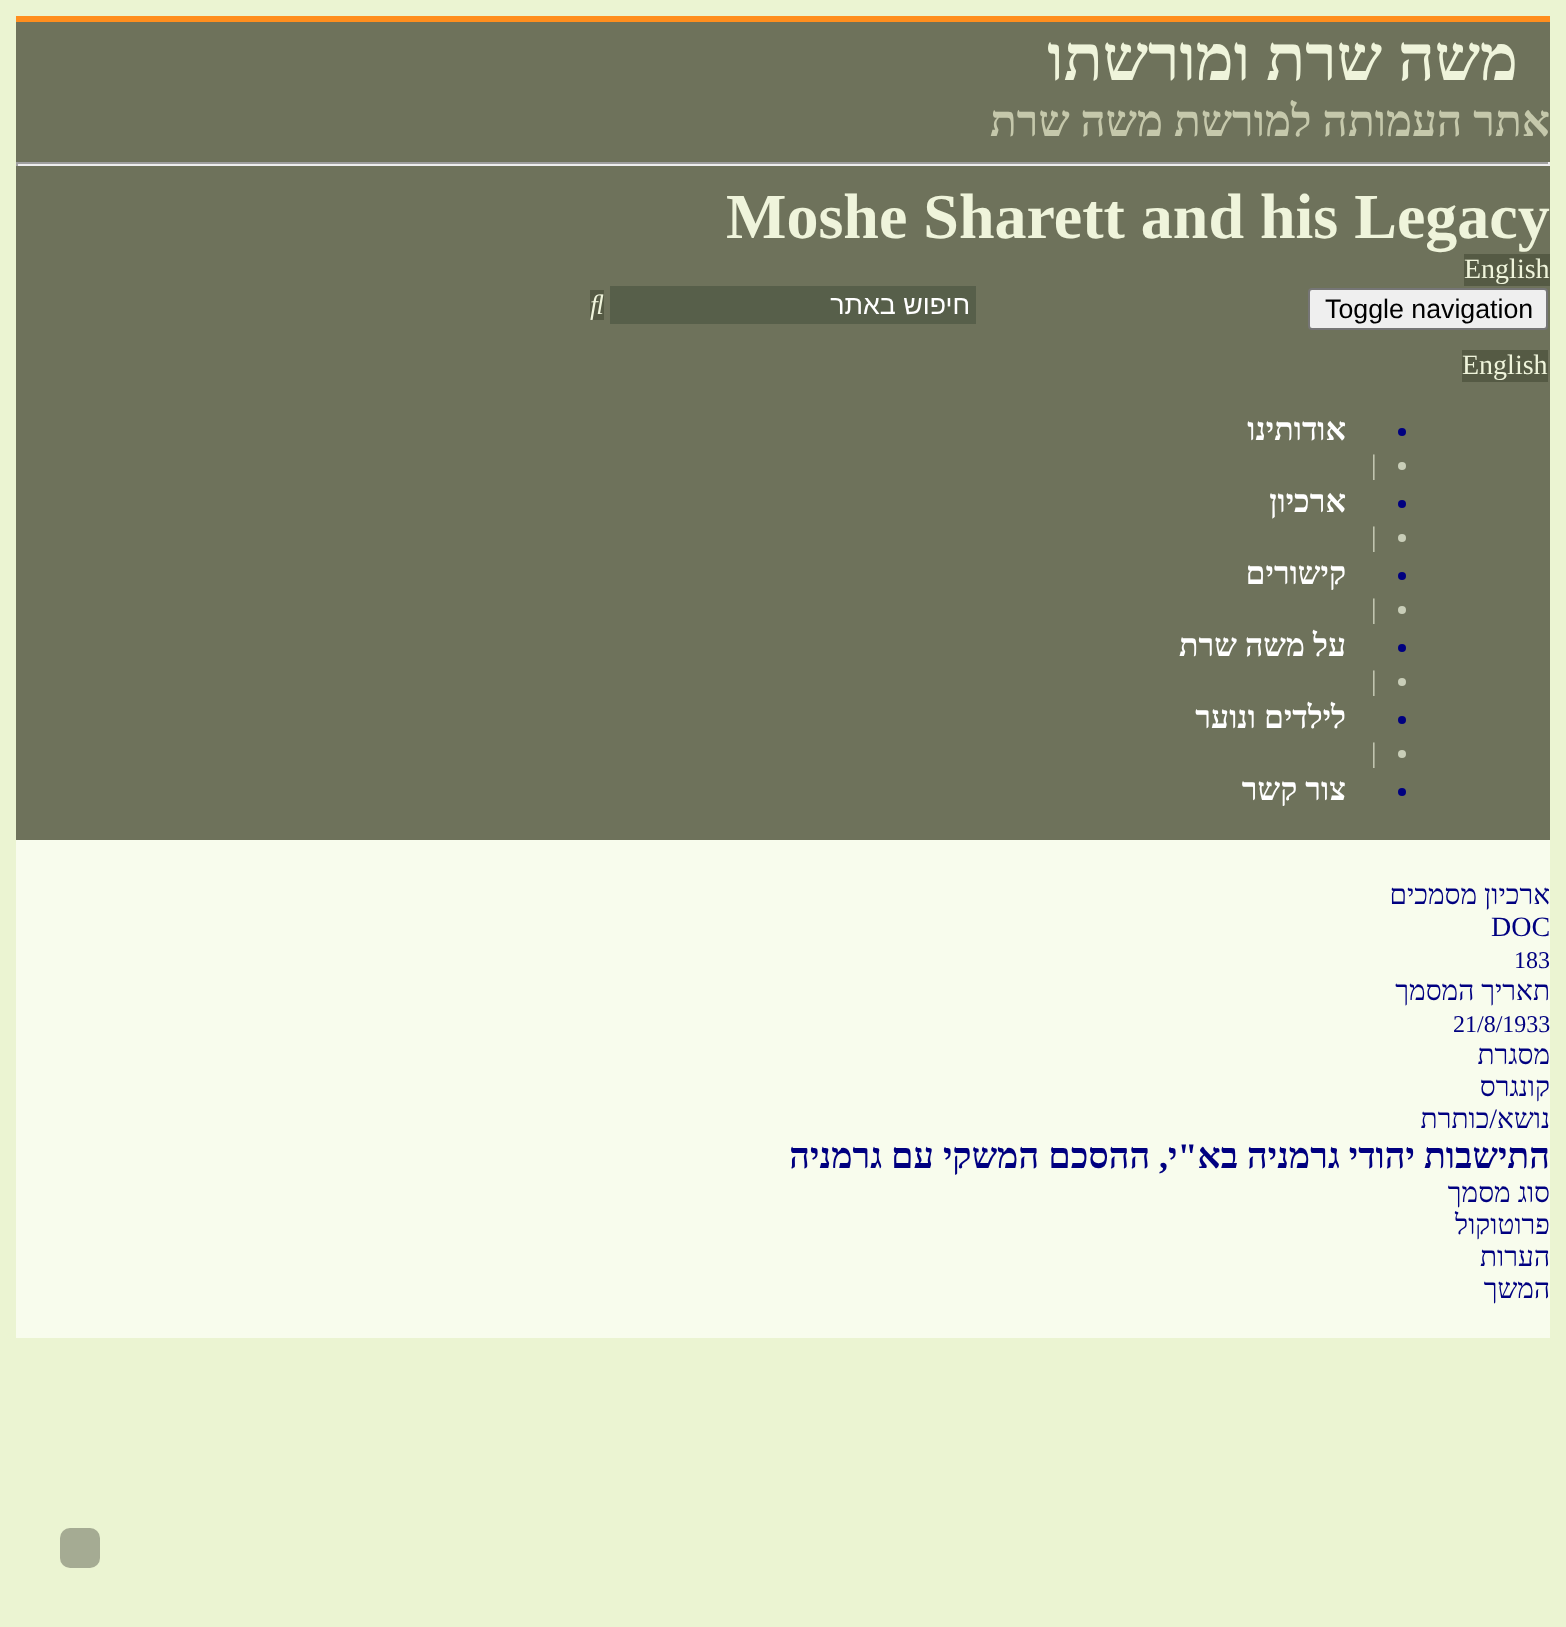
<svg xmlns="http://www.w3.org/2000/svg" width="1566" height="1627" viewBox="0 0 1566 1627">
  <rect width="100%" height="100%" fill="rgb(235,244,210)"/>
  <rect x="16" y="22" width="1534" height="818" fill="rgb(110,114,91)"/>
  <rect x="16" y="16" width="1534" height="6" fill="rgb(255,142,30)"/>
  <text x="1518" y="80" font-family="Liberation Serif" font-size="64" font-weight="bold" direction="rtl" fill="rgb(239,244,219)">משה שרת ומורשתו</text>
  <text x="1550" y="136" font-family="Liberation Serif" font-size="44" font-weight="bold" direction="rtl" fill="rgb(197,200,171)">אתר העמותה למורשת משה שרת</text>
  <rect x="16" y="162" width="1534" height="2" fill="rgb(159,159,159)"/>
  <rect x="1548" y="162" width="2" height="4" fill="rgb(238,238,238)"/>
  <rect x="16" y="164" width="1534" height="2" fill="rgb(238,238,238)"/>
  <rect x="16" y="162" width="2" height="4" fill="rgb(159,159,159)"/>
  <text x="726" y="238" font-family="Liberation Serif" font-size="64" font-weight="bold" fill="rgb(239,244,219)">Moshe Sharett and his Legacy</text>
  <rect x="1464" y="254" width="86" height="32" fill="rgb(85,90,68)"/>
  <text x="1464" y="278" font-family="Liberation Serif" font-size="28" fill="rgb(239,244,219)">English</text>
  <rect x="590" y="290" width="14" height="30" fill="rgb(85,90,68)"/>
  <rect x="610" y="286" width="366" height="38" fill="rgb(87,95,74)"/>
  <text x="970" y="314" font-family="Liberation Sans" font-size="26.75" direction="rtl" fill="rgb(255,255,255)">חיפוש באתר</text>
  <image x="590" y="294" width="14" height="26" href="pic1.png"/>
  <rect x="1309" y="289" width="238" height="40" rx="3" fill="rgb(239,239,239)" stroke="rgb(118,118,118)" stroke-width="2"/>
  <text x="1325" y="318" font-family="Liberation Sans" font-size="26.75" fill="rgb(0,0,0)">Toggle navigation</text>
  <rect x="1462" y="350" width="86" height="32" fill="rgb(85,90,68)"/>
  <text x="1462" y="374" font-family="Liberation Serif" font-size="28" fill="rgb(239,244,219)">English</text>
  <circle cx="1402" cy="432" r="4" fill="rgb(0,0,128)"/>
  <text x="1346" y="440" font-family="Liberation Serif" font-size="32" font-weight="bold" direction="rtl" fill="rgb(255,255,255)">אודותינו</text>
  <circle cx="1402" cy="466" r="4" fill="rgb(201,206,184)"/>
  <text x="1371" y="474" font-family="Liberation Serif" font-size="28" fill="rgb(201,206,184)">|</text>
  <circle cx="1402" cy="504" r="4" fill="rgb(0,0,128)"/>
  <text x="1346" y="512" font-family="Liberation Serif" font-size="32" font-weight="bold" direction="rtl" fill="rgb(255,255,255)">ארכיון</text>
  <circle cx="1402" cy="538" r="4" fill="rgb(201,206,184)"/>
  <text x="1371" y="546" font-family="Liberation Serif" font-size="28" fill="rgb(201,206,184)">|</text>
  <circle cx="1402" cy="576" r="4" fill="rgb(0,0,128)"/>
  <text x="1346" y="584" font-family="Liberation Serif" font-size="32" font-weight="bold" direction="rtl" fill="rgb(255,255,255)">קישורים</text>
  <circle cx="1402" cy="610" r="4" fill="rgb(201,206,184)"/>
  <text x="1371" y="618" font-family="Liberation Serif" font-size="28" fill="rgb(201,206,184)">|</text>
  <circle cx="1402" cy="648" r="4" fill="rgb(0,0,128)"/>
  <text x="1346" y="656" font-family="Liberation Serif" font-size="32" font-weight="bold" direction="rtl" fill="rgb(255,255,255)">על משה שרת</text>
  <circle cx="1402" cy="682" r="4" fill="rgb(201,206,184)"/>
  <text x="1371" y="690" font-family="Liberation Serif" font-size="28" fill="rgb(201,206,184)">|</text>
  <circle cx="1402" cy="720" r="4" fill="rgb(0,0,128)"/>
  <text x="1346" y="728" font-family="Liberation Serif" font-size="32" font-weight="bold" direction="rtl" fill="rgb(255,255,255)">לילדים ונוער</text>
  <circle cx="1402" cy="754" r="4" fill="rgb(201,206,184)"/>
  <text x="1371" y="762" font-family="Liberation Serif" font-size="28" fill="rgb(201,206,184)">|</text>
  <circle cx="1402" cy="792" r="4" fill="rgb(0,0,128)"/>
  <text x="1346" y="800" font-family="Liberation Serif" font-size="32" font-weight="bold" direction="rtl" fill="rgb(255,255,255)">צור קשר</text>
  <rect x="16" y="840" width="1534" height="498" fill="rgb(248,252,237)"/>
  <text x="1550" y="904" font-family="Liberation Serif" font-size="28" direction="rtl" fill="rgb(0,0,128)">ארכיון מסמכים</text>
  <text x="1491" y="936" font-family="Liberation Serif" font-size="28" fill="rgb(0,0,128)">DOC</text>
  <text x="1514" y="968" font-family="Liberation Serif" font-size="24" fill="rgb(0,0,128)">183</text>
  <text x="1550" y="1000" font-family="Liberation Serif" font-size="28" direction="rtl" fill="rgb(0,0,128)">תאריך המסמך</text>
  <text x="1453" y="1032" font-family="Liberation Serif" font-size="24" fill="rgb(0,0,128)">21/8/1933</text>
  <g font-family="Liberation Serif" font-size="28" direction="rtl" fill="rgb(0,0,128)">
    <text>
      <tspan x="1550" y="1064">מסגרת</tspan>
      <tspan x="1550" y="1096">קונגרס</tspan>
      <tspan x="1550" y="1128">נושא/כותרת</tspan>
    </text>
  </g>
  <text x="1550" y="1168" font-family="Liberation Serif" font-size="36" font-weight="bold" direction="rtl" fill="rgb(0,0,128)">התישבות יהודי גרמניה בא"י, ההסכם המשקי עם גרמניה</text>
  <g font-family="Liberation Serif" font-size="28" direction="rtl" fill="rgb(0,0,128)">
    <text>
      <tspan x="1550" y="1202">סוג מסמך</tspan>
      <tspan x="1550" y="1234">פרוטוקול</tspan>
      <tspan x="1550" y="1266">הערות</tspan>
      <tspan x="1550" y="1298">המשך</tspan>
    </text>
  </g>
  <rect x="60" y="1528" width="40" height="40" rx="10" fill="rgb(165,171,147)"/>
</svg>
